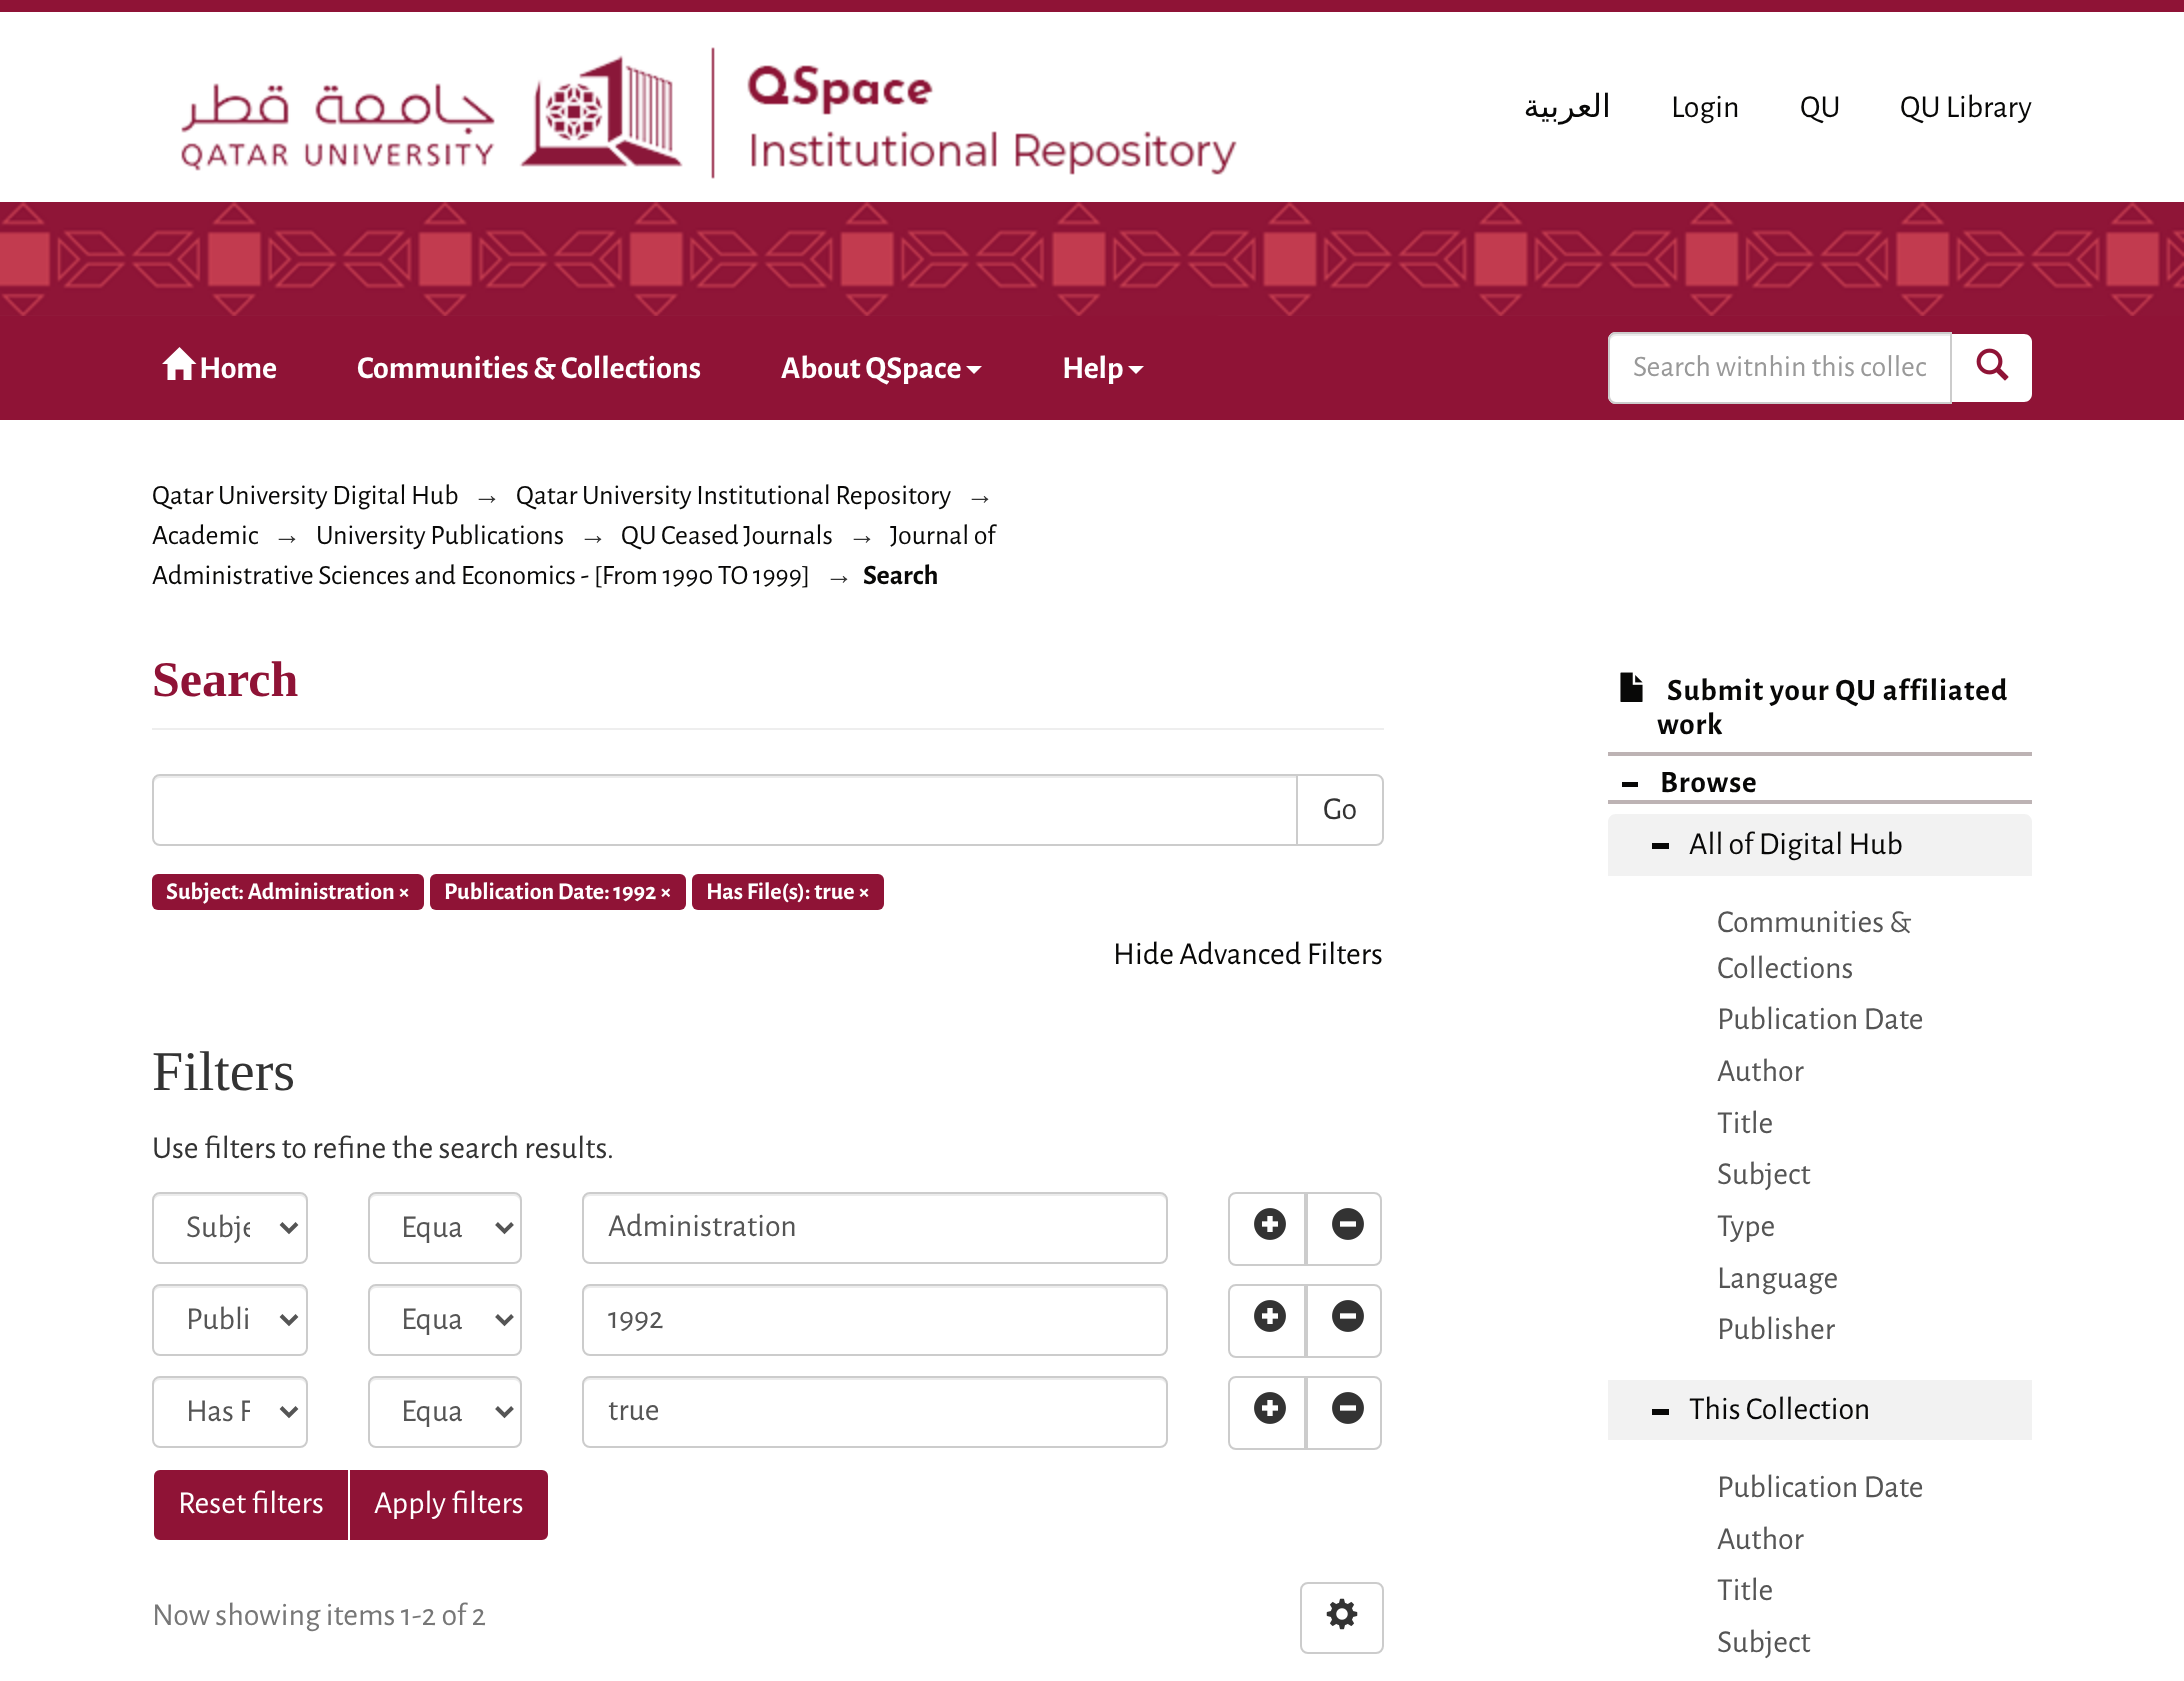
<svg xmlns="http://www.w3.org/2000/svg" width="2184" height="1681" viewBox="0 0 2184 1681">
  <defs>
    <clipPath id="clip1"><rect x="186" y="1210" width="64" height="36"/></clipPath>
    <clipPath id="clip2"><rect x="186" y="1394" width="64" height="36"/></clipPath>
  </defs>
  <rect width="100%" height="100%" fill="rgb(255,255,255)"/>
  <rect x="0" y="0" width="2184" height="12" fill="rgb(143,19,54)"/>
  <image x="181" y="47" width="1056" height="132" href="pic1.png"/>
  <text x="1611" y="117" font-family="DejaVu Sans" font-size="32" direction="rtl" fill="rgb(8,8,7)">العربية</text>
  <g font-family="Alegreya Sans" font-size="32" fill="rgb(8,8,7)">
    <text x="1671" y="117">Login</text>
    <text x="1800" y="117">QU</text>
    <text x="1900" y="117">QU Library</text>
  </g>
  <image x="0" y="202" width="2184" height="114" href="pic2.png"/>
  <rect x="0" y="316" width="2184" height="104" fill="rgb(143,19,54)"/>
  <path d="M162 364L179.5 347L196.5 364H191.5V380H183.5V369.5H175.5V380H167.5V364Z" fill="rgb(255,255,255)"/>
  <g font-family="Alegreya Sans" font-size="32" font-weight="bold" fill="rgb(255,255,255)">
    <text x="199" y="378">Home</text>
    <text x="357" y="378">Communities &amp; Collections</text>
    <text x="781" y="378">About QSpace</text>
  </g>
  <path d="M966 366H982L974 374Z" fill="rgb(255,255,255)"/>
  <text x="1062" y="378" font-family="Alegreya Sans" font-size="32" font-weight="bold" fill="rgb(255,255,255)">Help</text>
  <path d="M1128 366H1144L1136 374Z" fill="rgb(255,255,255)"/>
  <path d="M1950 334H2024C2028.5 334 2032 337.5 2032 342V394C2032 398.5 2028.5 402 2024 402H1950Z" fill="rgb(255,255,255)"/>
  <path d="M1616 332H1952V404H1616C1611.5 404 1608 400.5 1608 396V340C1608 335.5 1611.5 332 1616 332Z" fill="rgb(255,255,255)"/>
  <path d="M1616 336H1950V334H1615C1611 335 1610 339 1610 342C1610 339 1613 336 1616 336Z" fill="rgb(236,236,236)"/>
  <path d="M1616 333H1951V403H1616C1612 403 1609 400 1609 396V340C1609 336 1612 333 1616 333Z" fill="none" stroke="rgb(204,204,204)" stroke-width="2"/>
  <text x="1633" y="376" font-family="Alegreya Sans" font-size="30" fill="rgb(153,153,153)">Search witnhin this collec</text>
  <image x="1976" y="348" width="33" height="33" href="pic3.png"/>
  <text x="152" y="504" font-family="Alegreya Sans" font-size="28" fill="rgb(8,8,7)">Qatar University Digital Hub</text>
  <text x="473" y="504" font-family="Liberation Sans" font-size="28" fill="rgb(51,51,51)">→</text>
  <text x="516" y="504" font-family="Alegreya Sans" font-size="28" fill="rgb(8,8,7)">Qatar University Institutional Repository</text>
  <text x="966" y="504" font-family="Liberation Sans" font-size="28" fill="rgb(51,51,51)">→</text>
  <text x="152" y="544" font-family="Alegreya Sans" font-size="28" fill="rgb(8,8,7)">Academic</text>
  <text x="273" y="544" font-family="Liberation Sans" font-size="28" fill="rgb(51,51,51)">→</text>
  <text x="316" y="544" font-family="Alegreya Sans" font-size="28" fill="rgb(8,8,7)">University Publications</text>
  <text x="579" y="544" font-family="Liberation Sans" font-size="28" fill="rgb(51,51,51)">→</text>
  <text x="621" y="544" font-family="Alegreya Sans" font-size="28" fill="rgb(8,8,7)">QU Ceased Journals</text>
  <text x="848" y="544" font-family="Liberation Sans" font-size="28" fill="rgb(51,51,51)">→</text>
  <g font-family="Alegreya Sans" font-size="28" fill="rgb(8,8,7)">
    <text x="890" y="544">Journal of</text>
    <text x="152" y="584">Administrative Sciences and Economics - [From 1990 TO 1999]</text>
  </g>
  <text x="825" y="584" font-family="Liberation Sans" font-size="28" font-weight="bold" fill="rgb(51,51,51)">→</text>
  <text x="863" y="584" font-family="Alegreya Sans" font-size="28" font-weight="bold" fill="rgb(8,8,7)">Search</text>
  <rect x="152" y="728" width="1232" height="2" fill="rgb(238,238,238)"/>
  <text x="152" y="696" font-family="Liberation Serif" font-size="50" font-weight="bold" fill="rgb(143,19,54)">Search</text>
  <path d="M1297 775H1376C1380 775 1383 778 1383 782V838C1383 842 1380 845 1376 845H1297Z" fill="none" stroke="rgb(204,204,204)" stroke-width="2"/>
  <path d="M160 774H1298V846H160C155.5 846 152 842.5 152 838V782C152 777.5 155.5 774 160 774Z" fill="rgb(255,255,255)"/>
  <path d="M160 778H1296V776H160C157 776 154 779 154 782V784C154 781 157 778 160 778Z" fill="rgb(236,236,236)"/>
  <path d="M160 775H1297V845H160C156 845 153 842 153 838V782C153 778 156 775 160 775Z" fill="none" stroke="rgb(204,204,204)" stroke-width="2"/>
  <text x="1323" y="819" font-family="Alegreya Sans" font-size="32" fill="rgb(51,51,51)">Go</text>
  <rect x="152" y="874" width="272" height="36" rx="6" fill="rgb(143,19,54)"/>
  <text x="166" y="899" font-family="Alegreya Sans" font-size="24" font-weight="bold" fill="rgb(255,255,255)">Subject: Administration ×</text>
  <rect x="430" y="874" width="256" height="36" rx="6" fill="rgb(143,19,54)"/>
  <text x="444" y="899" font-family="Alegreya Sans" font-size="24" font-weight="bold" fill="rgb(255,255,255)">Publication Date: 1992 ×</text>
  <rect x="692" y="874" width="192" height="36" rx="6" fill="rgb(143,19,54)"/>
  <text x="706" y="899" font-family="Alegreya Sans" font-size="24" font-weight="bold" fill="rgb(255,255,255)">Has File(s): true ×</text>
  <text x="1113" y="964" font-family="Alegreya Sans" font-size="32" fill="rgb(8,8,7)">Hide Advanced Filters</text>
  <text x="152" y="1090" font-family="Liberation Serif" font-size="56" fill="rgb(51,51,51)">Filters</text>
  <text x="152" y="1158" font-family="Alegreya Sans" font-size="32" fill="rgb(51,51,51)">Use filters to refine the search results.</text>
  <path d="M160 1196H300C303 1196 306 1199 306 1202V1200C306 1197 303 1194 300 1194H160C157 1194 154 1197 154 1200V1202C154 1199 157 1196 160 1196Z" fill="rgb(236,236,236)"/>
  <rect x="153" y="1193" width="154" height="70" rx="7" fill="none" stroke="rgb(204,204,204)" stroke-width="2"/>
  <path d="M281 1223.5L289 1231.5L297 1223.5" fill="none" stroke="rgb(85,85,85)" stroke-width="4"/>
  <g clip-path="url(#clip1)">
    <text x="186" y="1237" font-family="Alegreya Sans" font-size="32" fill="rgb(85,85,85)">Subje</text>
  </g>
  <path d="M376 1196H514C517 1196 520 1199 520 1202V1200C520 1197 517 1194 514 1194H376C373 1194 370 1197 370 1200V1202C370 1199 373 1196 376 1196Z" fill="rgb(236,236,236)"/>
  <rect x="369" y="1193" width="152" height="70" rx="7" fill="none" stroke="rgb(204,204,204)" stroke-width="2"/>
  <path d="M496.5 1223.5L504.5 1231.5L512.5 1223.5" fill="none" stroke="rgb(85,85,85)" stroke-width="4"/>
  <text x="401" y="1237" font-family="Alegreya Sans" font-size="32" fill="rgb(85,85,85)">Equa</text>
  <path d="M590 1196H1160C1163 1196 1166 1199 1166 1202C1166 1198 1165 1194 1160 1194H590C585 1194 584 1198 584 1202C584 1199 587 1196 590 1196Z" fill="rgb(236,236,236)"/>
  <rect x="583" y="1193" width="584" height="70" rx="7" fill="none" stroke="rgb(204,204,204)" stroke-width="2"/>
  <text x="608" y="1236" font-family="Alegreya Sans" font-size="32" fill="rgb(85,85,85)">Administration</text>
  <path d="M1236 1193H1305V1265H1236C1232 1265 1229 1262 1229 1258V1200C1229 1196 1232 1193 1236 1193Z" fill="none" stroke="rgb(204,204,204)" stroke-width="2"/>
  <image x="1254" y="1208" width="32" height="32" href="pic4.png"/>
  <path d="M1307 1193H1374C1378 1193 1381 1196 1381 1200V1258C1381 1262 1378 1265 1374 1265H1307Z" fill="none" stroke="rgb(204,204,204)" stroke-width="2"/>
  <image x="1332" y="1208" width="32" height="32" href="pic5.png"/>
  <path d="M160 1288H300C303 1288 306 1291 306 1294V1292C306 1289 303 1286 300 1286H160C157 1286 154 1289 154 1292V1294C154 1291 157 1288 160 1288Z" fill="rgb(236,236,236)"/>
  <rect x="153" y="1285" width="154" height="70" rx="7" fill="none" stroke="rgb(204,204,204)" stroke-width="2"/>
  <path d="M281 1315.5L289 1323.5L297 1315.5" fill="none" stroke="rgb(85,85,85)" stroke-width="4"/>
  <text x="186" y="1329" font-family="Alegreya Sans" font-size="32" fill="rgb(85,85,85)">Publi</text>
  <path d="M376 1288H514C517 1288 520 1291 520 1294V1292C520 1289 517 1286 514 1286H376C373 1286 370 1289 370 1292V1294C370 1291 373 1288 376 1288Z" fill="rgb(236,236,236)"/>
  <rect x="369" y="1285" width="152" height="70" rx="7" fill="none" stroke="rgb(204,204,204)" stroke-width="2"/>
  <path d="M496.5 1315.5L504.5 1323.5L512.5 1315.5" fill="none" stroke="rgb(85,85,85)" stroke-width="4"/>
  <text x="401" y="1329" font-family="Alegreya Sans" font-size="32" fill="rgb(85,85,85)">Equa</text>
  <path d="M590 1288H1160C1163 1288 1166 1291 1166 1294C1166 1290 1165 1286 1160 1286H590C585 1286 584 1290 584 1294C584 1291 587 1288 590 1288Z" fill="rgb(236,236,236)"/>
  <rect x="583" y="1285" width="584" height="70" rx="7" fill="none" stroke="rgb(204,204,204)" stroke-width="2"/>
  <text x="608" y="1328" font-family="Alegreya Sans" font-size="32" fill="rgb(85,85,85)">1992</text>
  <path d="M1236 1285H1305V1357H1236C1232 1357 1229 1354 1229 1350V1292C1229 1288 1232 1285 1236 1285Z" fill="none" stroke="rgb(204,204,204)" stroke-width="2"/>
  <image x="1254" y="1300" width="32" height="32" href="pic4.png"/>
  <path d="M1307 1285H1374C1378 1285 1381 1288 1381 1292V1350C1381 1354 1378 1357 1374 1357H1307Z" fill="none" stroke="rgb(204,204,204)" stroke-width="2"/>
  <image x="1332" y="1300" width="32" height="32" href="pic5.png"/>
  <path d="M160 1380H300C303 1380 306 1383 306 1386V1384C306 1381 303 1378 300 1378H160C157 1378 154 1381 154 1384V1386C154 1383 157 1380 160 1380Z" fill="rgb(236,236,236)"/>
  <rect x="153" y="1377" width="154" height="70" rx="7" fill="none" stroke="rgb(204,204,204)" stroke-width="2"/>
  <path d="M281 1407.5L289 1415.5L297 1407.5" fill="none" stroke="rgb(85,85,85)" stroke-width="4"/>
  <g clip-path="url(#clip2)">
    <text x="186" y="1421" font-family="Alegreya Sans" font-size="32" fill="rgb(85,85,85)">Has F</text>
  </g>
  <path d="M376 1380H514C517 1380 520 1383 520 1386V1384C520 1381 517 1378 514 1378H376C373 1378 370 1381 370 1384V1386C370 1383 373 1380 376 1380Z" fill="rgb(236,236,236)"/>
  <rect x="369" y="1377" width="152" height="70" rx="7" fill="none" stroke="rgb(204,204,204)" stroke-width="2"/>
  <path d="M496.5 1407.5L504.5 1415.5L512.5 1407.5" fill="none" stroke="rgb(85,85,85)" stroke-width="4"/>
  <text x="401" y="1421" font-family="Alegreya Sans" font-size="32" fill="rgb(85,85,85)">Equa</text>
  <path d="M590 1380H1160C1163 1380 1166 1383 1166 1386C1166 1382 1165 1378 1160 1378H590C585 1378 584 1382 584 1386C584 1383 587 1380 590 1380Z" fill="rgb(236,236,236)"/>
  <rect x="583" y="1377" width="584" height="70" rx="7" fill="none" stroke="rgb(204,204,204)" stroke-width="2"/>
  <text x="608" y="1420" font-family="Alegreya Sans" font-size="32" fill="rgb(85,85,85)">true</text>
  <path d="M1236 1377H1305V1449H1236C1232 1449 1229 1446 1229 1442V1384C1229 1380 1232 1377 1236 1377Z" fill="none" stroke="rgb(204,204,204)" stroke-width="2"/>
  <image x="1254" y="1392" width="32" height="32" href="pic4.png"/>
  <path d="M1307 1377H1374C1378 1377 1381 1380 1381 1384V1442C1381 1446 1378 1449 1374 1449H1307Z" fill="none" stroke="rgb(204,204,204)" stroke-width="2"/>
  <image x="1332" y="1392" width="32" height="32" href="pic5.png"/>
  <path d="M160 1469H349V1541H160C156 1541 153 1538 153 1534V1476C153 1472 156 1469 160 1469Z" fill="rgb(143,19,54)" stroke="rgb(255,255,255)" stroke-width="2"/>
  <text x="178" y="1513" font-family="Alegreya Sans" font-size="32" fill="rgb(255,255,255)">Reset filters</text>
  <path d="M349 1469H542C546 1469 549 1472 549 1476V1534C549 1538 546 1541 542 1541H349Z" fill="rgb(143,19,54)" stroke="rgb(255,255,255)" stroke-width="2"/>
  <text x="374" y="1513" font-family="Alegreya Sans" font-size="32" fill="rgb(255,255,255)">Apply filters</text>
  <text x="152" y="1625" font-family="Alegreya Sans" font-size="32" fill="rgb(119,119,119)">Now showing items 1-2 of 2</text>
  <rect x="1301" y="1583" width="82" height="70" rx="7" fill="none" stroke="rgb(204,204,204)" stroke-width="2"/>
  <image x="1326" y="1598" width="32" height="32" href="pic6.png"/>
  <rect x="1608" y="752" width="424" height="4" fill="rgb(189,179,180)"/>
  <image x="1620" y="672" width="23" height="30" href="pic7.png"/>
  <g font-family="Alegreya Sans" font-size="31" font-weight="bold" letter-spacing="1" fill="rgb(8,8,7)">
    <text x="1667" y="700">Submit your QU affiliated</text>
    <text x="1657" y="734">work</text>
  </g>
  <rect x="1608" y="800" width="424" height="4" fill="rgb(189,179,180)"/>
  <rect x="1622" y="782" width="16" height="5" fill="rgb(8,8,7)"/>
  <text x="1660" y="792" font-family="Alegreya Sans" font-size="31" font-weight="bold" letter-spacing="1" fill="rgb(8,8,7)">Browse</text>
  <path d="M1616 814H2024C2028.5 814 2032 817.5 2032 822V876H1608V822C1608 817.5 1611.5 814 1616 814Z" fill="rgb(242,242,242)"/>
  <rect x="1652" y="843" width="17" height="6" fill="rgb(8,8,7)"/>
  <text x="1689" y="854" font-family="Alegreya Sans" font-size="32" fill="rgb(8,8,7)">All of Digital Hub</text>
  <g font-family="Alegreya Sans" font-size="32" fill="rgb(85,85,85)">
    <text>
      <tspan x="1717" y="932">Communities &amp;</tspan>
      <tspan x="1717" y="978">Collections</tspan>
      <tspan x="1717" y="1029">Publication Date</tspan>
      <tspan x="1717" y="1081">Author</tspan>
      <tspan x="1717" y="1133">Title</tspan>
      <tspan x="1717" y="1184">Subject</tspan>
      <tspan x="1717" y="1236">Type</tspan>
      <tspan x="1717" y="1288">Language</tspan>
      <tspan x="1717" y="1339">Publisher</tspan>
    </text>
  </g>
  <rect x="1608" y="1380" width="424" height="60" fill="rgb(242,242,242)"/>
  <rect x="1652" y="1409" width="17" height="6" fill="rgb(8,8,7)"/>
  <text x="1689" y="1419" font-family="Alegreya Sans" font-size="32" fill="rgb(8,8,7)">This Collection</text>
  <g font-family="Alegreya Sans" font-size="32" fill="rgb(85,85,85)">
    <text>
      <tspan x="1717" y="1497">Publication Date</tspan>
      <tspan x="1717" y="1549">Author</tspan>
      <tspan x="1717" y="1600">Title</tspan>
      <tspan x="1717" y="1652">Subject</tspan>
    </text>
  </g>
</svg>
